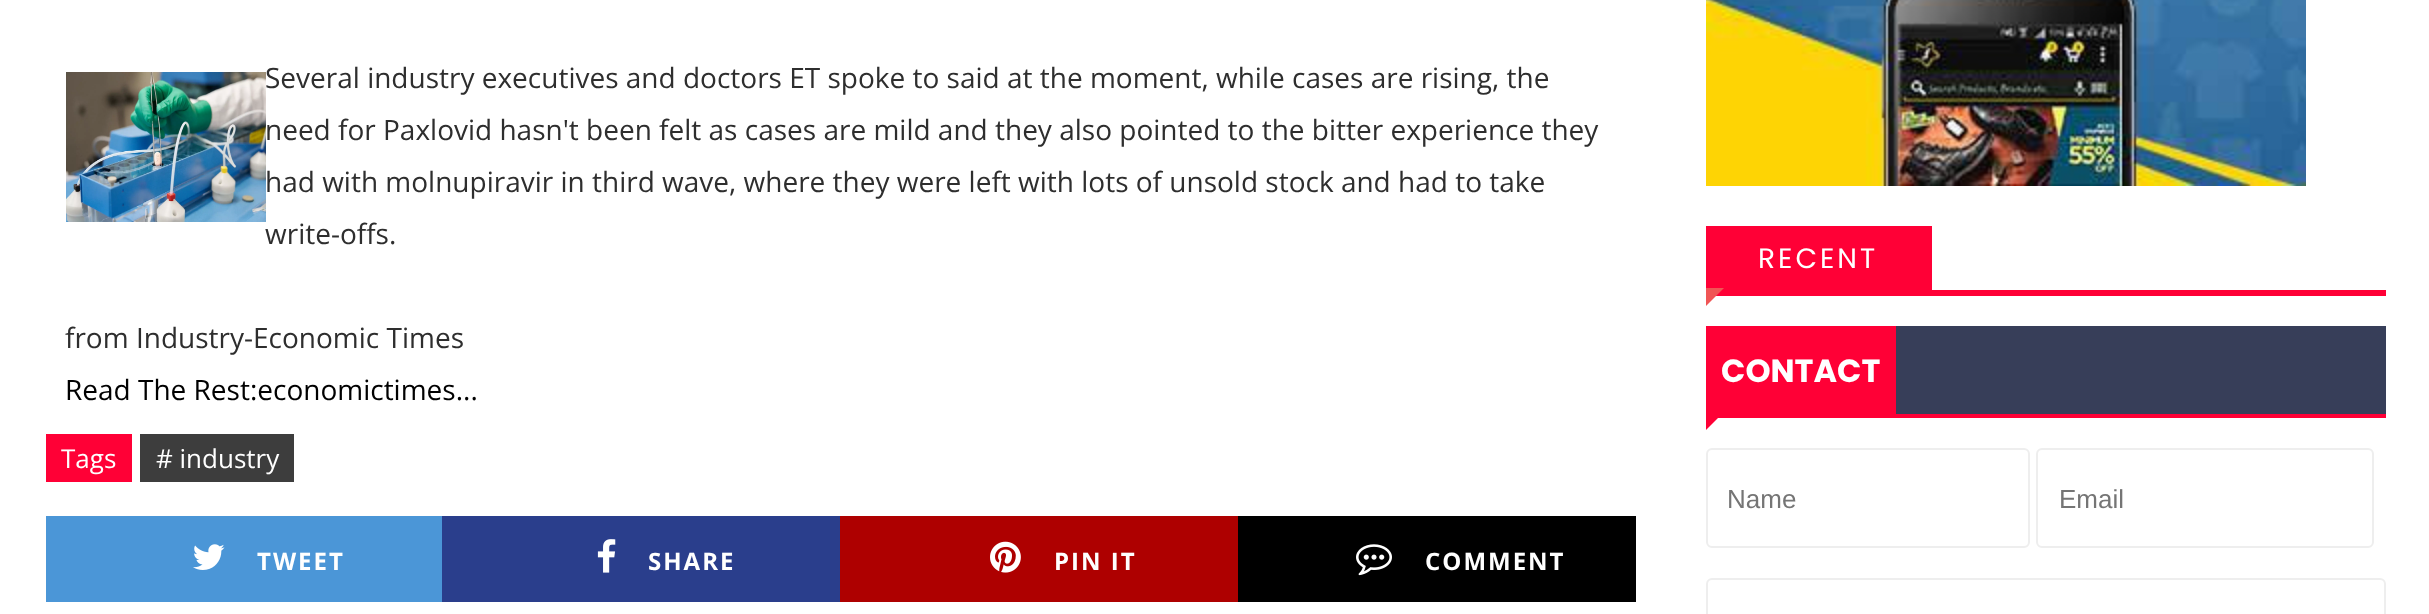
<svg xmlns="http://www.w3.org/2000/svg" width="2429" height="614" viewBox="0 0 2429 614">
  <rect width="100%" height="100%" fill="rgb(255,255,255)"/>
  <image x="66" y="72" width="200" height="150" href="pic1.png"/>
  <g font-family="Open Sans" font-size="28" fill="rgb(46,46,46)">
    <text>
      <tspan x="265" y="88">Several industry executives and doctors ET spoke to said at the moment, while cases are rising, the</tspan>
      <tspan x="265" y="140">need for Paxlovid hasn't been felt as cases are mild and they also pointed to the bitter experience they</tspan>
      <tspan x="265" y="192">had with molnupiravir in third wave, where they were left with lots of unsold stock and had to take</tspan>
      <tspan x="265" y="244">write-offs.</tspan>
    </text>
    <text x="65" y="348">from Industry-Economic Times</text>
  </g>
  <text x="65" y="400" font-family="Open Sans" font-size="28" fill="rgb(0,0,0)">Read The Rest:economictimes...</text>
  <rect x="46" y="434" width="86" height="48" fill="rgb(255,0,54)"/>
  <text x="61" y="468" font-family="Open Sans" font-size="26" fill="rgb(255,255,255)">Tags</text>
  <rect x="140" y="434" width="154" height="48" fill="rgb(61,61,61)"/>
  <text x="156" y="468" font-family="Open Sans" font-size="26" fill="rgb(255,255,255)"># industry</text>
  <rect x="46" y="516" width="396" height="86" fill="rgb(75,150,215)"/>
  <image x="193" y="544" width="32" height="26" href="pic2.png"/>
  <text x="257" y="570" font-family="Open Sans" font-size="24" font-weight="bold" letter-spacing="2" fill="rgb(255,255,255)">TWEET</text>
  <rect x="442" y="516" width="398" height="86" fill="rgb(42,62,140)"/>
  <image x="597" y="539" width="19" height="34" href="pic3.png"/>
  <text x="648" y="570" font-family="Open Sans" font-size="24" font-weight="bold" letter-spacing="2" fill="rgb(255,255,255)">SHARE</text>
  <rect x="840" y="516" width="398" height="86" fill="rgb(174,0,0)"/>
  <image x="990" y="541" width="31" height="32" href="pic4.png"/>
  <text x="1054" y="570" font-family="Open Sans" font-size="24" font-weight="bold" letter-spacing="2" fill="rgb(255,255,255)">PIN IT</text>
  <rect x="1238" y="516" width="398" height="86" fill="rgb(0,0,0)"/>
  <image x="1356" y="544" width="36" height="32" href="pic5.png"/>
  <text x="1425" y="570" font-family="Open Sans" font-size="24" font-weight="bold" letter-spacing="2" fill="rgb(255,255,255)">COMMENT</text>
  <image x="1706" y="0" width="600" height="186" href="pic6.png"/>
  <rect x="1716" y="290" width="670" height="6" fill="rgb(255,0,54)"/>
  <rect x="1706" y="226" width="226" height="64" fill="rgb(255,0,54)"/>
  <text x="1758" y="268" font-family="Poppins" font-size="28" letter-spacing="3" fill="rgb(255,255,255)">RECENT</text>
  <path d="M1706 288H1724L1706 306Z" fill="rgb(240,85,85)"/>
  <rect x="1896" y="326" width="490" height="88" fill="rgb(55,62,89)"/>
  <rect x="1896" y="414" width="490" height="4" fill="rgb(255,0,54)"/>
  <rect x="1706" y="326" width="190" height="92" fill="rgb(255,0,54)"/>
  <text x="1721" y="382" font-family="Poppins" font-size="32" font-weight="bold" fill="rgb(255,255,255)">CONTACT</text>
  <path d="M1706 412H1724L1706 430Z" fill="rgb(255,0,54)"/>
  <rect x="1707" y="449" width="322" height="98" rx="5" fill="none" stroke="rgb(238,238,238)" stroke-width="2"/>
  <text x="1727" y="508" font-family="Liberation Sans" font-size="26" fill="rgb(117,117,117)">Name</text>
  <rect x="2037" y="449" width="336" height="98" rx="5" fill="none" stroke="rgb(238,238,238)" stroke-width="2"/>
  <text x="2059" y="508" font-family="Liberation Sans" font-size="26" fill="rgb(117,117,117)">Email</text>
  <rect x="1707" y="579" width="678" height="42" rx="5" fill="none" stroke="rgb(238,238,238)" stroke-width="2"/>
</svg>
